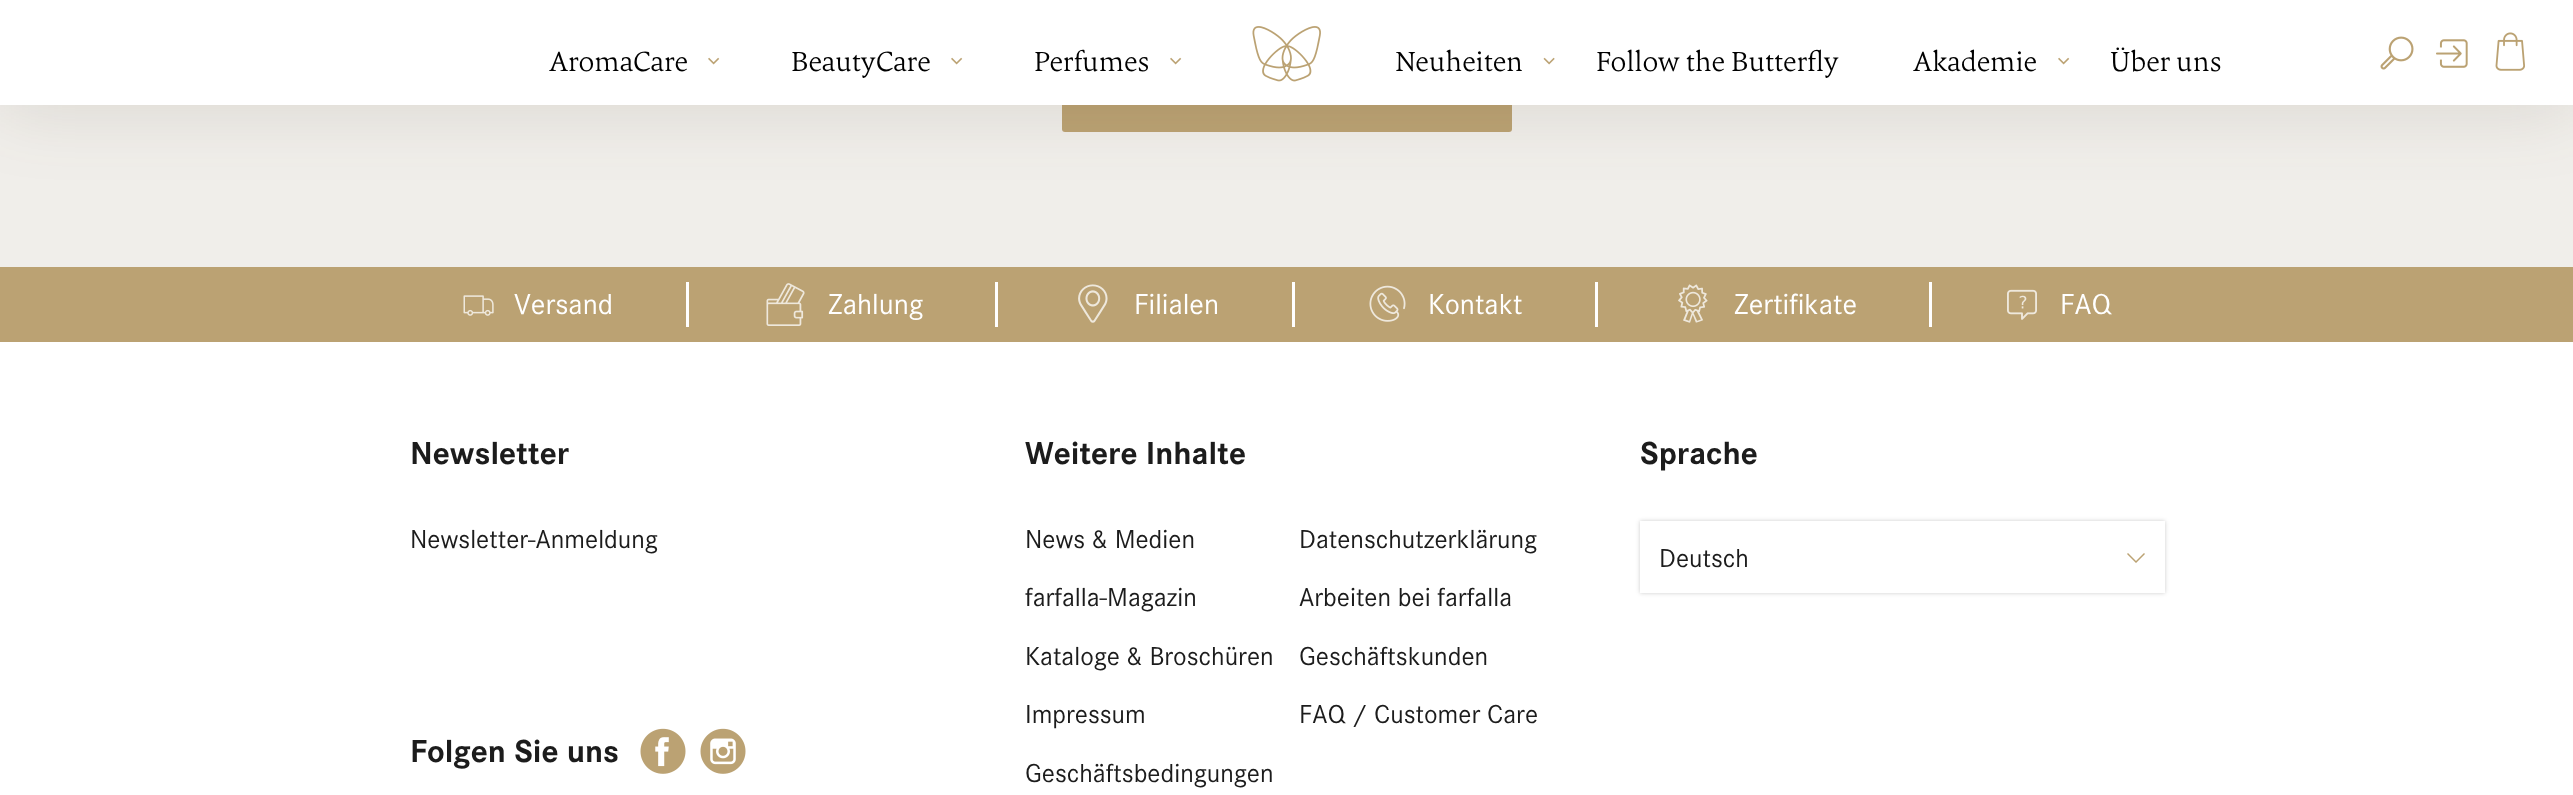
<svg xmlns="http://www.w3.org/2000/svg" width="2573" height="795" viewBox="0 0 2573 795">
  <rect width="100%" height="100%" fill="rgb(255,255,255)"/>
  <rect x="0" y="105" width="2573" height="162" fill="rgb(240,238,234)"/>
  <rect x="1062" y="35" width="450" height="97" rx="3" fill="rgb(187,162,115)"/>
  <rect x="0" y="0" width="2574" height="105" fill="rgba(82,69,44,0.15)" filter="blur(37.5px)"/>
  <rect x="0" y="0" width="2573" height="105" fill="rgb(255,255,255)"/>
  <image x="1252" y="26" width="69" height="56" href="pic1.png"/>
  <image x="2380" y="36" width="34" height="34" href="pic2.png"/>
  <image x="2436" y="39" width="32" height="29" href="pic3.png"/>
  <image x="2495" y="32" width="30" height="39" href="pic4.png"/>
  <text x="549" y="71" font-family="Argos" font-size="27" font-weight="300" fill="rgb(0,0,0)">AromaCare</text>
  <image x="708" y="57" width="12" height="8" href="pic5.png"/>
  <text x="791" y="71" font-family="Argos" font-size="27" font-weight="300" fill="rgb(0,0,0)">BeautyCare</text>
  <image x="951" y="57" width="12" height="8" href="pic5.png"/>
  <text x="1034" y="71" font-family="Argos" font-size="27" font-weight="300" fill="rgb(0,0,0)">Perfumes</text>
  <image x="1170" y="57" width="12" height="8" href="pic5.png"/>
  <text x="1395" y="71" font-family="Argos" font-size="27" font-weight="300" fill="rgb(0,0,0)">Neuheiten</text>
  <image x="1543" y="57" width="12" height="8" href="pic6.png"/>
  <g font-family="Argos" font-size="27" font-weight="300" fill="rgb(0,0,0)">
    <text x="1596" y="71">Follow the Butterfly</text>
    <text x="1913" y="71">Akademie</text>
  </g>
  <image x="2058" y="57" width="12" height="8" href="pic5.png"/>
  <text x="2110" y="71" font-family="Argos" font-size="27" font-weight="300" fill="rgb(0,0,0)">Über uns</text>
  <rect x="0" y="267" width="2573" height="75" fill="rgb(187,162,115)"/>
  <image x="463" y="295" width="31" height="21" href="pic7.png"/>
  <text x="514" y="314" font-family="'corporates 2'" font-size="30" fill="rgb(255,255,255)">Versand</text>
  <rect x="686" y="282" width="3" height="45" fill="rgb(255,255,255)"/>
  <image x="766" y="283" width="39" height="43" href="pic8.png"/>
  <text x="828" y="314" font-family="'corporates 2'" font-size="30" fill="rgb(255,255,255)">Zahlung</text>
  <rect x="995" y="282" width="3" height="45" fill="rgb(255,255,255)"/>
  <image x="1078" y="284" width="30" height="39" href="pic9.png"/>
  <text x="1134" y="314" font-family="'corporates 2'" font-size="30" fill="rgb(255,255,255)">Filialen</text>
  <rect x="1292" y="282" width="3" height="45" fill="rgb(255,255,255)"/>
  <image x="1369" y="285" width="37" height="37" href="pic10.png"/>
  <text x="1428" y="314" font-family="'corporates 2'" font-size="30" fill="rgb(255,255,255)">Kontakt</text>
  <rect x="1595" y="282" width="3" height="45" fill="rgb(255,255,255)"/>
  <image x="1678" y="284" width="30" height="39" href="pic11.png"/>
  <text x="1734" y="314" font-family="'corporates 2'" font-size="30" fill="rgb(255,255,255)">Zertifikate</text>
  <rect x="1929" y="282" width="3" height="45" fill="rgb(255,255,255)"/>
  <image x="2007" y="289" width="30" height="31" href="pic12.png"/>
  <text x="2060" y="314" font-family="'corporates 2'" font-size="30" fill="rgb(255,255,255)">FAQ</text>
  <text x="410" y="464" font-family="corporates" font-size="33" fill="rgb(28,28,28)">Newsletter</text>
  <text x="410" y="548" font-family="'corporates 2'" font-size="27" fill="rgb(28,28,28)">Newsletter-Anmeldung</text>
  <text x="410" y="762" font-family="corporates" font-size="33" fill="rgb(28,28,28)">Folgen Sie uns</text>
  <image x="640" y="728" width="46" height="46" href="pic13.png"/>
  <image x="700" y="728" width="46" height="46" href="pic14.png"/>
  <text x="1025" y="464" font-family="corporates" font-size="33" fill="rgb(28,28,28)">Weitere Inhalte</text>
  <g font-family="'corporates 2'" font-size="27" fill="rgb(28,28,28)">
    <text x="1025" y="548">News &amp; Medien</text>
    <text x="1299" y="548">Datenschutzerklärung</text>
    <text x="1025" y="606">farfalla-Magazin</text>
    <text x="1299" y="606">Arbeiten bei farfalla</text>
    <text x="1025" y="665">Kataloge &amp; Broschüren</text>
    <text x="1299" y="665">Geschäftskunden</text>
    <text x="1025" y="723">Impressum</text>
    <text x="1299" y="723">FAQ / Customer Care</text>
    <text x="1025" y="782">Geschäftsbedingungen</text>
  </g>
  <text x="1640" y="464" font-family="corporates" font-size="33" fill="rgb(28,28,28)">Sprache</text>
  <rect x="1640" y="521" width="525" height="72" fill="rgba(0,0,0,0.2)" filter="blur(2px)"/>
  <rect x="1640" y="521" width="525" height="72" fill="rgb(255,255,255)"/>
  <text x="1659" y="567" font-family="'corporates 2'" font-size="27" fill="rgb(28,28,28)">Deutsch</text>
  <path d="M2128 553L2127 554L2136 563L2145 554L2144 553L2136 561Z" fill="rgb(187,162,115)"/>
</svg>
